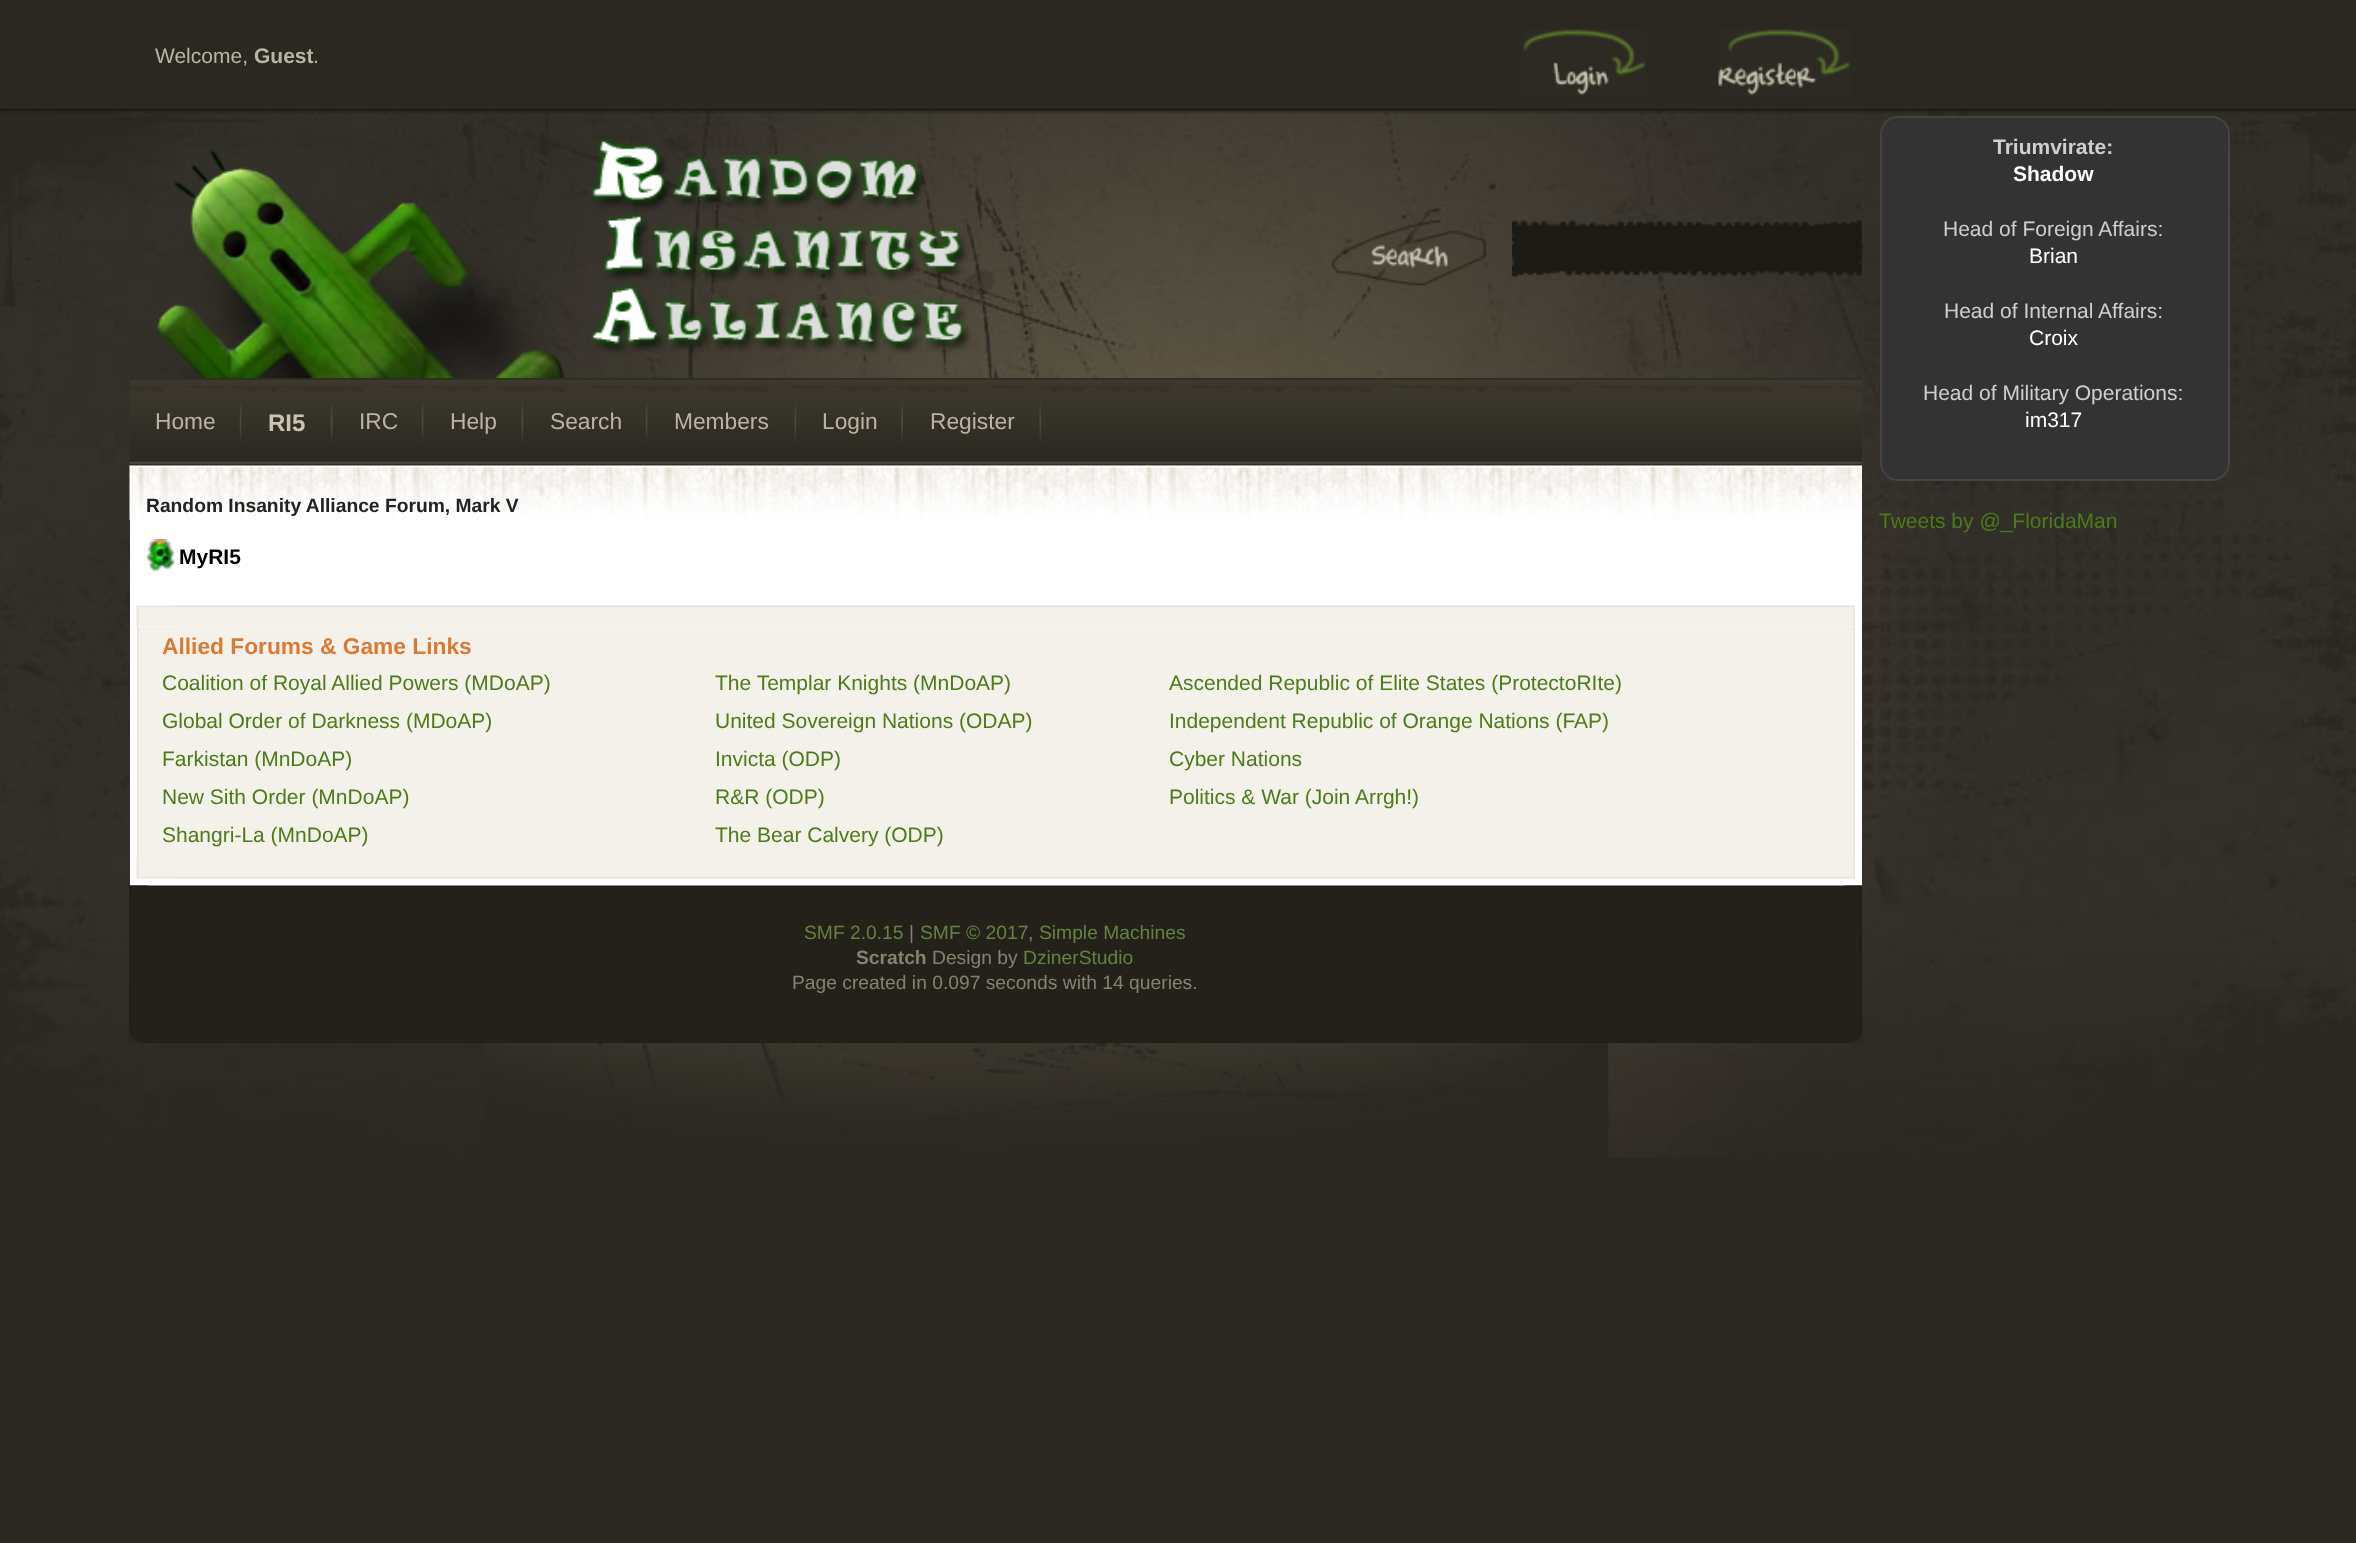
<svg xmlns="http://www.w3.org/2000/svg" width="2356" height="1543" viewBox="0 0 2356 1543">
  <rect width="100%" height="100%" fill="rgb(43,40,33)"/>
  <image x="0" y="109" width="2356" height="1050" href="pic1.png"/>
  <image x="0" y="106" width="2356" height="8" href="pic2.png"/>
  <text x="155" y="63" font-family="Liberation Sans" font-size="21" fill="rgb(186,181,162)">Welcome,</text>
  <text x="254" y="63" font-family="Liberation Sans" font-size="21" font-weight="bold" fill="rgb(186,181,162)">Guest</text>
  <text x="313" y="63" font-family="Liberation Sans" font-size="21" fill="rgb(186,181,162)">.</text>
  <image x="1522" y="29" width="124" height="66" href="pic3.png"/>
  <image x="1718" y="29" width="133" height="66" href="pic4.png"/>
  <image x="157" y="137" width="814" height="241" href="pic5.png"/>
  <image x="1331" y="220" width="155" height="66" href="pic6.png"/>
  <image x="1512" y="220" width="350" height="57" href="pic7.png"/>
  <rect x="1881" y="117" width="348" height="363" rx="17" fill="rgb(51,51,51)" stroke="rgb(68,68,68)" stroke-width="2"/>
  <text x="1993" y="154" font-family="Liberation Sans" font-size="21" font-weight="bold" fill="rgb(207,207,207)">Triumvirate:</text>
  <text x="2013" y="181" font-family="Liberation Sans" font-size="21" font-weight="bold" fill="rgb(255,255,255)">Shadow</text>
  <text x="1943" y="236" font-family="Liberation Sans" font-size="21" fill="rgb(207,207,207)">Head of Foreign Affairs:</text>
  <text x="2029" y="263" font-family="Liberation Sans" font-size="21" fill="rgb(255,255,255)">Brian</text>
  <text x="1944" y="318" font-family="Liberation Sans" font-size="21" fill="rgb(207,207,207)">Head of Internal Affairs:</text>
  <text x="2029" y="345" font-family="Liberation Sans" font-size="21" fill="rgb(255,255,255)">Croix</text>
  <text x="1923" y="400" font-family="Liberation Sans" font-size="21" fill="rgb(207,207,207)">Head of Military Operations:</text>
  <text x="2025" y="427" font-family="Liberation Sans" font-size="21" fill="rgb(255,255,255)">im317</text>
  <text x="1879" y="528" font-family="Liberation Sans" font-size="21" fill="rgb(76,123,24)">Tweets by @_FloridaMan</text>
  <image x="129" y="378" width="1733" height="88" href="pic8.png"/>
  <image x="239" y="402" width="3" height="41" href="pic9.png"/>
  <text x="155" y="429" font-family="Liberation Sans" font-size="22.75" fill="rgb(186,181,162)">Home</text>
  <image x="330" y="402" width="3" height="41" href="pic9.png"/>
  <text x="268" y="431" font-family="Liberation Sans" font-size="24" font-weight="bold" fill="rgb(202,197,178)">RI5</text>
  <image x="421" y="402" width="3" height="41" href="pic9.png"/>
  <text x="359" y="429" font-family="Liberation Sans" font-size="22.75" fill="rgb(186,181,162)">IRC</text>
  <image x="521" y="402" width="3" height="41" href="pic10.png"/>
  <text x="450" y="429" font-family="Liberation Sans" font-size="22.75" fill="rgb(186,181,162)">Help</text>
  <image x="645" y="402" width="3" height="41" href="pic9.png"/>
  <text x="550" y="429" font-family="Liberation Sans" font-size="22.75" fill="rgb(186,181,162)">Search</text>
  <image x="794" y="402" width="3" height="41" href="pic10.png"/>
  <text x="674" y="429" font-family="Liberation Sans" font-size="22.75" fill="rgb(186,181,162)">Members</text>
  <image x="901" y="402" width="2" height="41" href="pic11.png"/>
  <text x="822" y="429" font-family="Liberation Sans" font-size="22.75" fill="rgb(186,181,162)">Login</text>
  <image x="1039" y="402" width="3" height="41" href="pic10.png"/>
  <text x="930" y="429" font-family="Liberation Sans" font-size="22.75" fill="rgb(186,181,162)">Register</text>
  <rect x="130" y="519" width="1732" height="367" fill="rgb(255,255,255)"/>
  <image x="129" y="465" width="1733" height="55" href="pic12.png"/>
  <text x="146" y="512" font-family="Liberation Sans" font-size="19.25" font-weight="bold" fill="rgb(34,34,34)">Random Insanity Alliance Forum, Mark V</text>
  <image x="147" y="539" width="28" height="32" href="pic13.png"/>
  <text x="179" y="564" font-family="Liberation Sans" font-size="21" font-weight="bold" fill="rgb(0,0,0)">MyRI5</text>
  <image x="136" y="605" width="1719" height="22" href="pic14.png"/>
  <image x="172" y="605" width="1683" height="22" href="pic15.png"/>
  <rect x="139" y="627" width="1714" height="231" fill="rgb(244,241,235)"/>
  <rect x="1853" y="627" width="2" height="231" fill="rgb(232,229,223)"/>
  <rect x="137" y="627" width="2" height="231" fill="rgb(232,229,223)"/>
  <text x="162" y="654" font-family="Liberation Sans" font-size="22.75" font-weight="bold" fill="rgb(217,123,51)">Allied Forums &amp; Game Links</text>
  <g font-family="Liberation Sans" font-size="21" fill="rgb(76,123,24)">
    <text x="162" y="690">Coalition of Royal Allied Powers (MDoAP)</text>
    <text x="715" y="690">The Templar Knights (MnDoAP)</text>
    <text x="1169" y="690">Ascended Republic of Elite States (ProtectoRIte)</text>
    <text x="162" y="728">Global Order of Darkness (MDoAP)</text>
    <text x="715" y="728">United Sovereign Nations (ODAP)</text>
    <text x="1169" y="728">Independent Republic of Orange Nations (FAP)</text>
    <text x="162" y="766">Farkistan (MnDoAP)</text>
    <text x="715" y="766">Invicta (ODP)</text>
    <text x="1169" y="766">Cyber Nations</text>
    <text x="162" y="804">New Sith Order (MnDoAP)</text>
    <text x="715" y="804">R&amp;R (ODP)</text>
    <text x="1169" y="804">Politics &amp; War (Join Arrgh!)</text>
    <text x="162" y="842">Shangri-La (MnDoAP)</text>
    <text x="715" y="842">The Bear Calvery (ODP)</text>
  </g>
  <image x="136" y="857" width="1719" height="22" href="pic16.png"/>
  <image x="172" y="858" width="1683" height="21" href="pic17.png"/>
  <image x="129" y="885" width="1733" height="158" href="pic18.png"/>
  <image x="129" y="885" width="20" height="158" href="pic19.png"/>
  <image x="1844" y="885" width="18" height="158" href="pic20.png"/>
  <text x="804" y="939" font-family="Liberation Sans" font-size="19.25" fill="rgb(101,130,64)">SMF 2.0.15</text>
  <text x="909" y="939" font-family="Liberation Sans" font-size="19.25" fill="rgb(135,130,112)">|</text>
  <text x="920" y="939" font-family="Liberation Sans" font-size="19.25" fill="rgb(101,130,64)">SMF © 2017</text>
  <text x="1028" y="939" font-family="Liberation Sans" font-size="19.25" fill="rgb(135,130,112)">,</text>
  <text x="1039" y="939" font-family="Liberation Sans" font-size="19.25" fill="rgb(101,130,64)">Simple Machines</text>
  <text x="856" y="964" font-family="Liberation Sans" font-size="19.25" font-weight="bold" fill="rgb(135,130,112)">Scratch</text>
  <text x="932" y="964" font-family="Liberation Sans" font-size="19.25" fill="rgb(135,130,112)">Design by</text>
  <text x="1023" y="964" font-family="Liberation Sans" font-size="19.25" fill="rgb(101,130,64)">DzinerStudio</text>
  <text x="792" y="989" font-family="Liberation Sans" font-size="19.25" fill="rgb(135,130,112)">Page created in 0.097 seconds with 14 queries.</text>
  <image x="484" y="1043" width="1125" height="116" href="pic21.png"/>
</svg>
